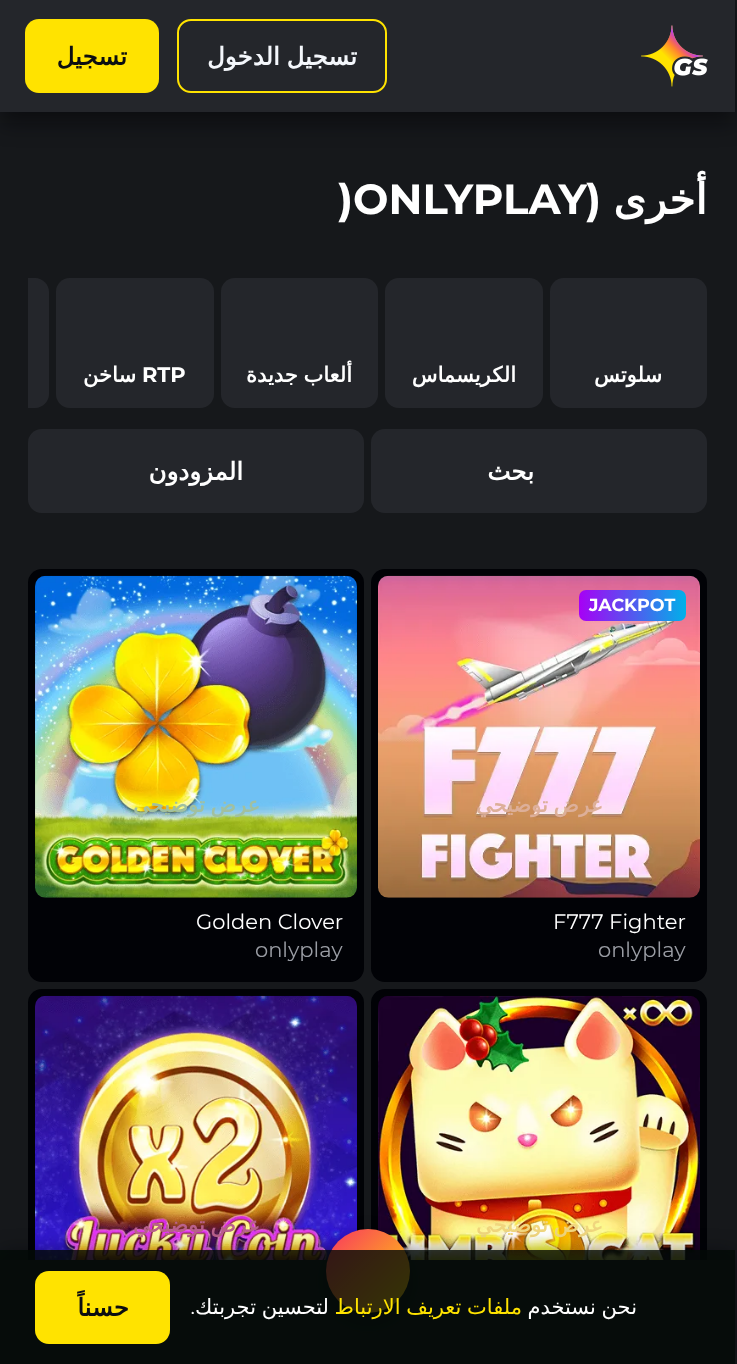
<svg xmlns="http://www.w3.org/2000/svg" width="737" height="1364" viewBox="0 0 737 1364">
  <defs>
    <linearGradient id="g1" gradientUnits="userSpaceOnUse" x1="159" y1="56" x2="-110" y2="56"><stop offset="0" stop-color="rgb(255,227,0)"/><stop offset="0.5" stop-color="rgb(255,227,0)"/><stop offset="0.84" stop-color="rgb(179,149,0)"/></linearGradient>
    <linearGradient id="g2" gradientUnits="userSpaceOnUse" x1="628" y1="149" x2="628" y2="408"><stop offset="0" stop-color="rgb(53,56,62)"/><stop offset="0.45" stop-color="rgb(36,38,43)"/></linearGradient>
    <linearGradient id="g3" gradientUnits="userSpaceOnUse" x1="464" y1="149" x2="464" y2="408"><stop offset="0" stop-color="rgb(53,56,62)"/><stop offset="0.45" stop-color="rgb(36,38,43)"/></linearGradient>
    <linearGradient id="g4" gradientUnits="userSpaceOnUse" x1="299" y1="149" x2="299" y2="408"><stop offset="0" stop-color="rgb(53,56,62)"/><stop offset="0.45" stop-color="rgb(36,38,43)"/></linearGradient>
    <linearGradient id="g5" gradientUnits="userSpaceOnUse" x1="135" y1="149" x2="135" y2="408"><stop offset="0" stop-color="rgb(53,56,62)"/><stop offset="0.45" stop-color="rgb(36,38,43)"/></linearGradient>
    <linearGradient id="g6" gradientUnits="userSpaceOnUse" x1="-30" y1="149" x2="-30" y2="408"><stop offset="0" stop-color="rgb(53,56,62)"/><stop offset="0.45" stop-color="rgb(36,38,43)"/></linearGradient>
    <linearGradient id="g7" gradientUnits="userSpaceOnUse" x1="539" y1="345" x2="539" y2="513"><stop offset="0" stop-color="rgb(53,56,62)"/><stop offset="0.45" stop-color="rgb(36,38,43)"/></linearGradient>
    <linearGradient id="g8" gradientUnits="userSpaceOnUse" x1="196" y1="345" x2="196" y2="513"><stop offset="0" stop-color="rgb(53,56,62)"/><stop offset="0.45" stop-color="rgb(36,38,43)"/></linearGradient>
    <linearGradient id="g9" gradientUnits="userSpaceOnUse" x1="579" y1="606" x2="686" y2="606"><stop offset="0" stop-color="rgb(167,0,245)"/><stop offset="1" stop-color="rgb(0,177,233)"/></linearGradient>
    <clipPath id="clip1"><rect x="392" y="940" width="294" height="21"/></clipPath>
    <clipPath id="clip2"><rect x="49" y="940" width="294" height="21"/></clipPath>
    <linearGradient id="g10" gradientUnits="userSpaceOnUse" x1="326" y1="1229" x2="494" y2="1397"><stop offset="0" stop-color="rgb(249,51,98)"/><stop offset="0.5" stop-color="rgb(255,227,0)"/><stop offset="1" stop-color="rgb(249,51,98)"/></linearGradient>
    <linearGradient id="g11" gradientUnits="userSpaceOnUse" x1="170" y1="1307" x2="-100" y2="1307"><stop offset="0" stop-color="rgb(255,227,0)"/><stop offset="0.5" stop-color="rgb(255,227,0)"/><stop offset="0.84" stop-color="rgb(179,149,0)"/></linearGradient>
  </defs>
  <rect width="100%" height="100%" fill="rgb(22,24,27)"/>
  <rect x="0" y="11" width="735" height="112" fill="rgba(1,2,6,0.5)" filter="blur(10.5px)"/>
  <rect x="0" y="0" width="735" height="112" fill="rgb(36,38,43)"/>
  <image x="641" y="25" width="67" height="62" href="pic1.png"/>
  <rect x="178" y="20" width="208" height="72" rx="13" fill="none" stroke="rgb(255,227,0)" stroke-width="2"/>
  <text x="357" y="65" word-spacing="-1" font-family="DejaVu Sans" font-size="24.5" font-weight="bold" direction="rtl" fill="rgb(244,247,252)">تسجيل الدخول</text>
  <rect x="25" y="19" width="134" height="74" rx="14" fill="url(#g1)"/>
  <text x="127" y="65" font-family="DejaVu Sans" font-size="24.5" font-weight="bold" direction="rtl" fill="rgb(12,14,17)">تسجيل</text>
  <text x="707" y="214" font-family="DejaVu Sans" font-size="42" font-weight="bold" direction="rtl" fill="rgb(255,255,255)">أخرى</text>
  <text x="601" y="214" font-family="Montserrat" font-size="42" font-weight="100" direction="rtl" fill="rgb(255,255,255)">(</text>
  <g font-family="Montserrat" font-size="42" font-weight="100" fill="rgb(255,255,255)">
    <text x="353" y="214">ONLYPLAY</text>
    <text x="338" y="214">)</text>
  </g>
  <rect x="550" y="278" width="157" height="130" rx="14" fill="url(#g2)"/>
  <text x="662" y="382" font-family="DejaVu Sans" font-size="21" font-weight="bold" direction="rtl" fill="rgb(255,255,255)">سلوتس</text>
  <rect x="385" y="278" width="158" height="130" rx="14" fill="url(#g3)"/>
  <text x="516" y="382" font-family="DejaVu Sans" font-size="21" font-weight="bold" direction="rtl" fill="rgb(255,255,255)">الكريسماس</text>
  <rect x="221" y="278" width="157" height="130" rx="14" fill="url(#g4)"/>
  <text x="352" y="382" word-spacing="-1" font-family="DejaVu Sans" font-size="21" font-weight="bold" direction="rtl" fill="rgb(255,255,255)">ألعاب جديدة</text>
  <rect x="56" y="278" width="158" height="130" rx="14" fill="url(#g5)"/>
  <text x="142" y="382" font-family="Montserrat" font-size="21" font-weight="100" fill="rgb(255,255,255)">RTP</text>
  <text x="136" y="382" font-family="DejaVu Sans" font-size="21" font-weight="bold" direction="rtl" fill="rgb(255,255,255)">ساخن</text>
  <path d="M28 278H35C42.5 278 49 284.5 49 292V394C49 401.5 42.5 408 35 408H28Z" fill="url(#g6)"/>
  <rect x="371" y="429" width="336" height="84" rx="14" fill="url(#g7)"/>
  <text x="534" y="480" font-family="DejaVu Sans" font-size="24.5" font-weight="bold" direction="rtl" fill="rgb(255,255,255)">بحث</text>
  <rect x="28" y="429" width="336" height="84" rx="14" fill="url(#g8)"/>
  <text x="243" y="480" font-family="DejaVu Sans" font-size="24.5" font-weight="bold" direction="rtl" fill="rgb(255,255,255)">المزودون</text>
  <rect x="371" y="569" width="336" height="413" rx="14" fill="rgb(1,2,6)"/>
  <image x="378" y="575" width="322" height="323" href="pic2.png"/>
  <rect x="579" y="590" width="107" height="31" rx="7" fill="url(#g9)"/>
  <text x="589" y="611" font-family="Montserrat" font-size="17.5" font-weight="100" fill="rgb(255,255,255)">JACKPOT</text>
  <text x="603" y="812" word-spacing="-1" font-family="DejaVu Sans" font-size="21" font-weight="bold" direction="rtl" fill="rgb(221,175,153)">عرض توضيحي</text>
  <text x="553" y="929" font-family="'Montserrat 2'" font-size="21" font-weight="100" fill="rgb(255,255,255)">F777 Fighter</text>
  <g clip-path="url(#clip1)">
    <text x="598" y="957" font-family="'Montserrat 2'" font-size="21" font-weight="100" fill="rgb(154,157,164)">onlyplay</text>
  </g>
  <rect x="28" y="569" width="336" height="413" rx="14" fill="rgb(1,2,6)"/>
  <image x="35" y="575" width="322" height="323" href="pic3.png"/>
  <text x="260" y="812" word-spacing="-1" font-family="DejaVu Sans" font-size="21" font-weight="bold" direction="rtl" fill="rgb(161,192,160)">عرض توضيحي</text>
  <text x="196" y="929" font-family="'Montserrat 2'" font-size="21" font-weight="100" fill="rgb(255,255,255)">Golden Clover</text>
  <g clip-path="url(#clip2)">
    <text x="255" y="957" font-family="'Montserrat 2'" font-size="21" font-weight="100" fill="rgb(154,157,164)">onlyplay</text>
  </g>
  <rect x="371" y="989" width="336" height="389" rx="14" fill="rgb(1,2,6)"/>
  <image x="378" y="996" width="322" height="264" href="pic4.png"/>
  <text x="603" y="1232" word-spacing="-1" font-family="DejaVu Sans" font-size="21" font-weight="bold" direction="rtl" fill="rgb(240,214,126)">عرض توضيحي</text>
  <rect x="28" y="989" width="336" height="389" rx="14" fill="rgb(1,2,6)"/>
  <image x="35" y="995" width="322" height="265" href="pic5.png"/>
  <text x="260" y="1232" word-spacing="-1" font-family="DejaVu Sans" font-size="21" font-weight="bold" direction="rtl" fill="rgb(185,97,139)">عرض توضيحي</text>
  <rect x="0" y="1253" width="735" height="105" fill="rgba(1,2,6,0.5)" filter="blur(10.5px)"/>
  <rect x="0" y="1260" width="735" height="104" fill="rgb(22,24,27)"/>
  <rect x="326" y="1239" width="84" height="84" rx="42" fill="rgba(1,2,6,0.5)" filter="blur(10.5px)"/>
  <circle cx="368" cy="1271" r="42" fill="url(#g10)"/>
  <rect x="0" y="1250" width="735" height="114" fill="rgba(2,10,6,0.8)"/>
  <text x="637" y="1314" word-spacing="-1" font-family="DejaVu Sans" font-size="21" direction="rtl" fill="rgb(255,255,255)">نحن نستخدم</text>
  <text x="522" y="1314" word-spacing="-1" font-family="DejaVu Sans" font-size="21" direction="rtl" fill="rgb(255,227,0)">ملفات تعريف الارتباط</text>
  <text x="329" y="1314" word-spacing="-1" font-family="DejaVu Sans" font-size="21" direction="rtl" fill="rgb(255,255,255)">لتحسين تجربتك</text>
  <text x="195" y="1314" font-family="'Montserrat 2'" font-size="21" font-weight="100" direction="rtl" fill="rgb(255,255,255)">.</text>
  <rect x="35" y="1271" width="135" height="73" rx="14" fill="url(#g11)"/>
  <text x="129" y="1316" font-family="DejaVu Sans" font-size="24.5" font-weight="bold" direction="rtl" fill="rgb(12,14,17)">حسناً</text>
</svg>
